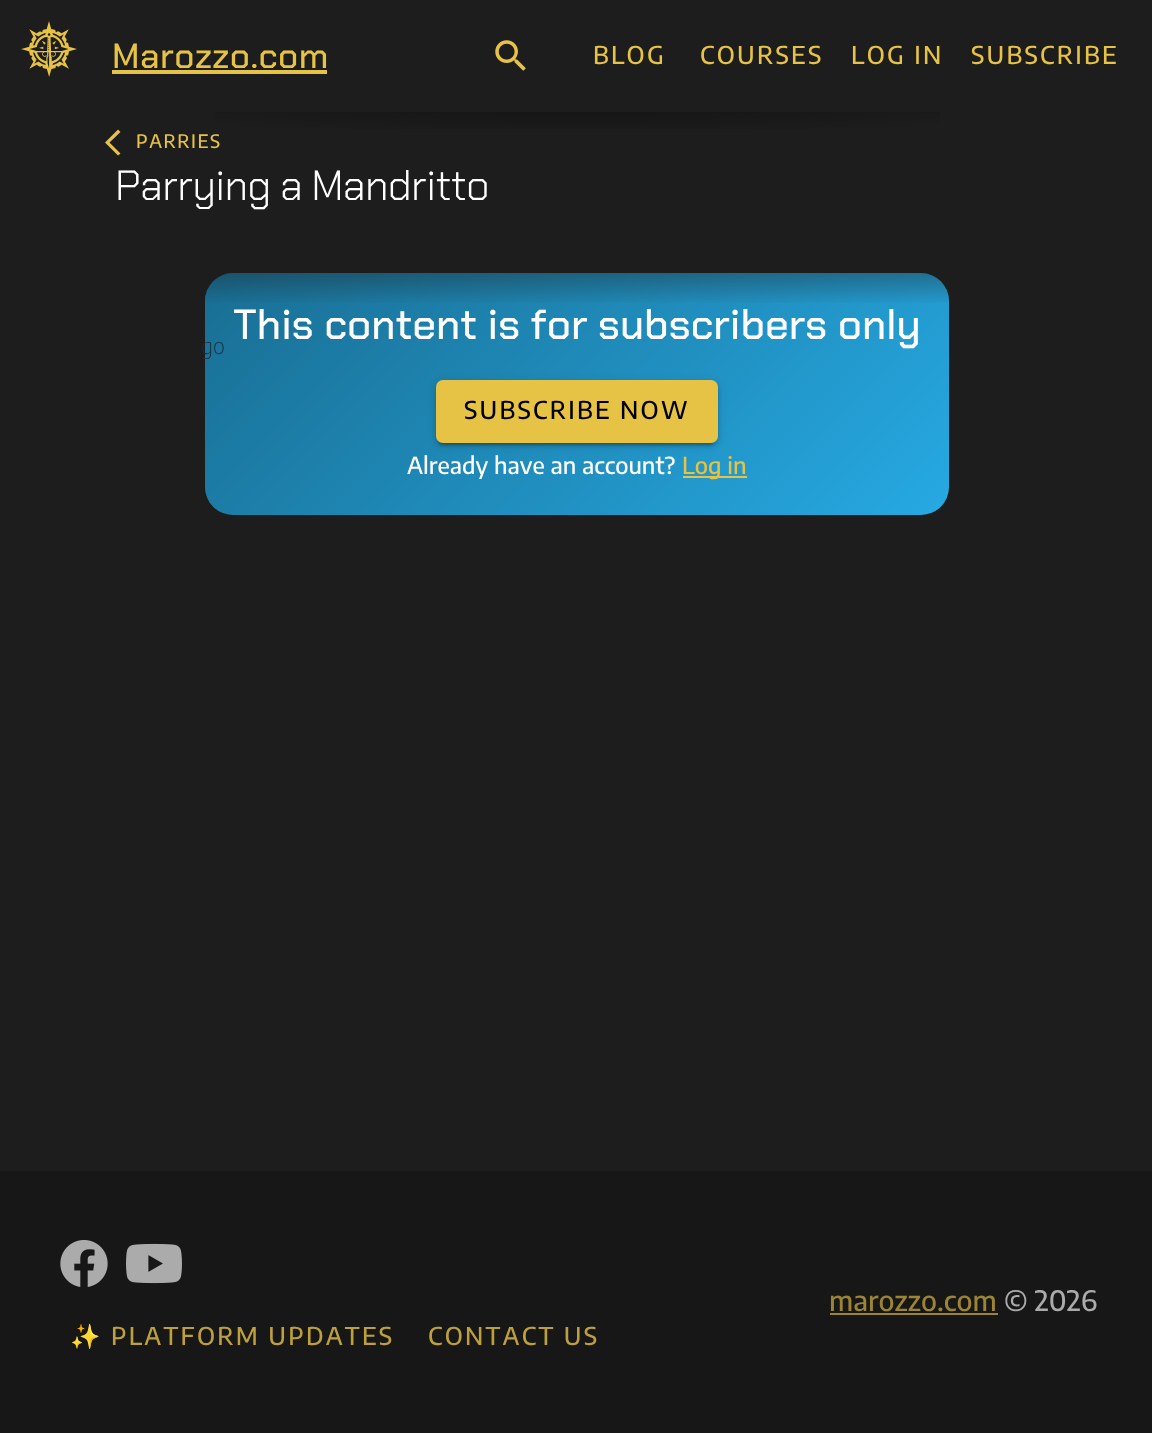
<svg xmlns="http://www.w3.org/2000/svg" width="1152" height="1433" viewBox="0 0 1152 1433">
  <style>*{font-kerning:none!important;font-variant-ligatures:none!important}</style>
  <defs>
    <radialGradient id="g1" gradientUnits="userSpaceOnUse" cx="0" cy="0" r="1" gradientTransform="matrix(815 0 0 79 577 84)"><stop offset="0" stop-color="rgb(0,0,0)" stop-opacity="0.5"/><stop offset="0.7" stop-color="rgb(0,0,0)" stop-opacity="0"/><stop offset="1" stop-color="rgb(0,0,0)" stop-opacity="0"/></radialGradient>
    <linearGradient id="g2" gradientUnits="userSpaceOnUse" x1="330" y1="147" x2="823" y2="640"><stop offset="0" stop-color="rgb(0,0,0)" stop-opacity="0.35"/><stop offset="1" stop-color="rgb(0,0,0)" stop-opacity="0"/></linearGradient>
    <linearGradient id="g3" gradientUnits="userSpaceOnUse" x1="577" y1="112" x2="577" y2="595"><stop offset="0.06" stop-color="rgb(29,29,29)" stop-opacity="0.98"/><stop offset="0.22" stop-color="rgb(29,29,29)" stop-opacity="0.93"/><stop offset="0.4" stop-color="rgb(29,29,29)" stop-opacity="0"/></linearGradient>
  </defs>
  <rect width="100%" height="100%" fill="rgb(29,29,29)"/>
  <image x="21" y="21" width="56" height="56" href="pic1.png"/>
  <text x="112" y="68" font-family="Chakra Petch" font-size="35" font-weight="500" letter-spacing="0.5" fill="rgb(230,194,69)">Marozzo.com</text>
  <rect x="112" y="70" width="215" height="4" fill="rgb(230,194,69)"/>
  <image x="495" y="40" width="31" height="31" href="pic2.png"/>
  <g font-family="Encode Sans Condensed" font-size="24.5" font-weight="100" letter-spacing="2.25" fill="rgb(230,194,69)">
    <text x="593" y="64">BLOG</text>
    <text x="700" y="64">COURSES</text>
    <text x="851" y="64">LOG IN</text>
    <text x="971" y="64">SUBSCRIBE</text>
  </g>
  <rect x="214" y="112" width="726" height="17" fill="url(#g1)"/>
  <path d="M120.5 132L109.5 142.5L120.5 153.5L118 155.5L105 142.5L118 129.5Z" fill="rgb(230,194,69)"/>
  <text x="136" y="148" font-family="Encode Sans Condensed" font-size="18.5" font-weight="100" letter-spacing="1.5" fill="rgb(230,194,69)">PARRIES</text>
  <text x="115" y="200" font-family="Chakra Petch" font-size="42" font-weight="300" letter-spacing="-0.7" fill="rgb(255,255,255)">Parrying a Mandritto</text>
  <rect x="205" y="273" width="744" height="242" rx="28" fill="rgb(38,169,226)"/>
  <rect x="205" y="273" width="744" height="242" rx="28" fill="url(#g2)"/>
  <text x="201" y="354" font-family="'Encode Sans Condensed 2'" font-size="22" font-weight="100" fill="rgb(28,47,55)">go</text>
  <rect x="205" y="273" width="744" height="30" fill="url(#g3)"/>
  <text x="233" y="339" font-family="Chakra Petch" font-size="42" font-weight="500" fill="rgb(255,255,255)">This content is for subscribers only</text>
  <rect x="436" y="382" width="282" height="63" rx="7" fill="rgba(0,0,0,0.12)" filter="blur(4.5px)"/>
  <rect x="436" y="383" width="282" height="63" rx="7" fill="rgba(0,0,0,0.14)" filter="blur(2px)"/>
  <rect x="439" y="389" width="275" height="56" rx="4" fill="rgba(0,0,0,0.2)" filter="blur(1px)"/>
  <rect x="436" y="380" width="282" height="63" rx="7" fill="rgb(230,194,69)"/>
  <text x="464" y="419" font-family="Encode Sans Condensed" font-size="24.5" font-weight="100" letter-spacing="2.25" fill="rgb(0,0,0)">SUBSCRIBE NOW</text>
  <text x="407" y="474" font-family="Encode Sans Condensed" font-size="23.25" font-weight="100" fill="rgb(255,255,255)">Already have an account?</text>
  <rect x="683" y="476" width="64" height="2" fill="rgb(230,194,69)"/>
  <text x="682" y="474" font-family="Encode Sans Condensed" font-size="23.25" font-weight="100" fill="rgb(230,194,69)">Log in</text>
  <rect x="0" y="1171" width="1152" height="262" fill="rgb(23,23,23)"/>
  <text x="829" y="1311" font-family="Encode Sans Condensed" font-size="28" font-weight="100" fill="rgb(155,132,52)">marozzo.com</text>
  <rect x="830" y="1313" width="168" height="2" fill="rgb(155,132,52)"/>
  <text x="1004" y="1311" font-family="Encode Sans Condensed" font-size="28" font-weight="100" fill="rgb(171,171,171)">© 2026</text>
  <image x="60" y="1240" width="48" height="47" href="pic3.png"/>
  <image x="126" y="1243" width="56" height="41" href="pic4.png"/>
  <text x="70" y="1345" font-family="Noto Color Emoji" font-size="24.5" letter-spacing="2.25" fill="rgb(189,160,60)">✨</text>
  <g font-family="Encode Sans Condensed" font-size="24.5" font-weight="100" letter-spacing="2.25" fill="rgb(189,160,60)">
    <text x="111" y="1345">PLATFORM UPDATES</text>
    <text x="428" y="1345">CONTACT US</text>
  </g>
</svg>
